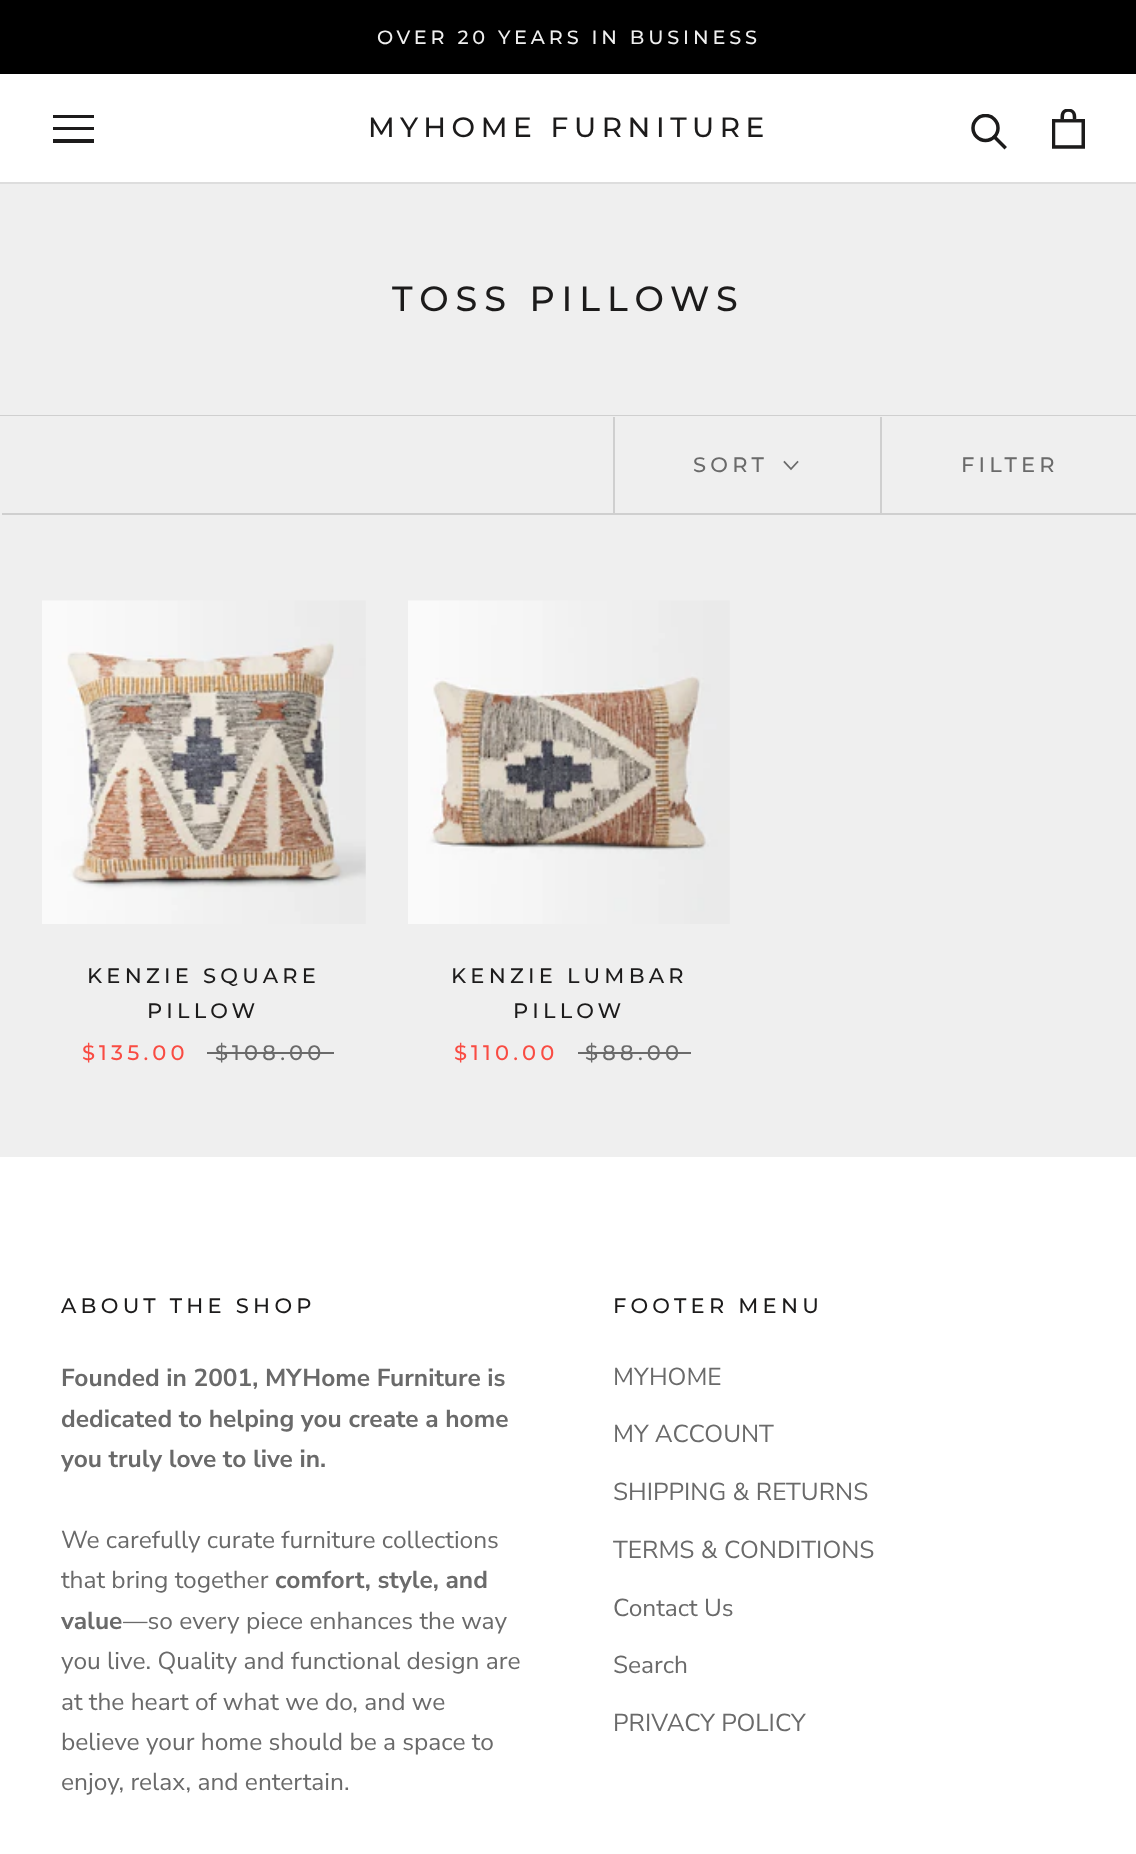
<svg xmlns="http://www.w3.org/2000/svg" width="1136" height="1854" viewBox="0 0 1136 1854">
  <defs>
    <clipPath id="clip1"><rect x="53" y="114" width="42" height="30"/></clipPath>
    <clipPath id="clip2"><rect x="971" y="114" width="37" height="37"/></clipPath>
  </defs>
  <rect width="100%" height="100%" fill="rgb(239,239,239)"/>
  <rect x="0" y="0" width="1136" height="74" fill="rgb(0,0,0)"/>
  <text x="377" y="44" font-family="Montserrat" font-size="19.25" font-weight="500" letter-spacing="3.85" fill="rgb(239,239,239)">OVER 20 YEARS IN BUSINESS</text>
  <rect x="0" y="74" width="1136" height="108" fill="rgb(255,255,255)"/>
  <rect x="0" y="182" width="1136" height="2" fill="rgb(221,221,221)"/>
  <g clip-path="url(#clip1)">
    <path d="M52 143V139H94V143ZM52 127H94V130H52ZM52 115H94V118H52Z" fill="rgb(28,27,27)"/>
  </g>
  <text x="368" y="137" font-family="Montserrat" font-size="28" font-weight="500" letter-spacing="5.6" fill="rgb(28,27,27)">MYHOME FURNITURE</text>
  <path d="M1004.5 147L994.5 137" fill="none" stroke="rgb(28,27,27)" stroke-width="3.5" stroke-linecap="square"/>
  <g clip-path="url(#clip2)">
    <circle cx="985.5" cy="128" r="12.5" fill="none" stroke="rgb(28,27,27)" stroke-width="3.5"/>
  </g>
  <image x="1052" y="109" width="33" height="40" href="pic1.png"/>
  <text x="392" y="311" font-family="Montserrat" font-size="35" font-weight="500" letter-spacing="7" fill="rgb(28,27,27)">TOSS PILLOWS</text>
  <path d="M-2 415V511H0V416H1136V415Z" fill="rgb(207,207,207)"/>
  <path d="M2 513V515H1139V418H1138V513Z" fill="rgb(207,207,207)"/>
  <rect x="613" y="417" width="2" height="96" fill="rgb(207,207,207)"/>
  <text x="693" y="472" font-family="Montserrat" font-size="21" font-weight="500" letter-spacing="4.25" fill="rgb(106,106,106)">SORT</text>
  <path d="M797.5 462L791 469L784.5 462" fill="none" stroke="rgb(106,106,106)" stroke-width="1.8" stroke-linecap="square"/>
  <rect x="880" y="417" width="2" height="96" fill="rgb(207,207,207)"/>
  <text x="961" y="472" font-family="Montserrat" font-size="21" font-weight="500" letter-spacing="4.25" fill="rgb(106,106,106)">FILTER</text>
  <image x="42" y="600" width="324" height="324" href="pic2.png"/>
  <g font-family="Montserrat" font-size="21" font-weight="500" letter-spacing="4.25" fill="rgb(28,27,27)">
    <text x="87" y="983">KENZIE SQUARE</text>
    <text x="147" y="1018">PILLOW</text>
  </g>
  <text x="82" y="1060" font-family="Montserrat" font-size="21" font-weight="500" letter-spacing="4.25" fill="rgb(249,76,67)">$135.00</text>
  <text x="215" y="1060" font-family="Montserrat" font-size="21" font-weight="500" letter-spacing="4.25" fill="rgb(106,106,106)">$108.00</text>
  <rect x="207" y="1052" width="127" height="2" fill="rgb(106,106,106)"/>
  <image x="408" y="600" width="322" height="324" href="pic3.png"/>
  <g font-family="Montserrat" font-size="21" font-weight="500" letter-spacing="4.25" fill="rgb(28,27,27)">
    <text x="451" y="983">KENZIE LUMBAR</text>
    <text x="513" y="1018">PILLOW</text>
  </g>
  <text x="454" y="1060" font-family="Montserrat" font-size="21" font-weight="500" letter-spacing="4.25" fill="rgb(249,76,67)">$110.00</text>
  <text x="585" y="1060" font-family="Montserrat" font-size="21" font-weight="500" letter-spacing="4.25" fill="rgb(106,106,106)">$88.00</text>
  <rect x="578" y="1052" width="113" height="2" fill="rgb(106,106,106)"/>
  <rect x="0" y="1157" width="1136" height="697" fill="rgb(255,255,255)"/>
  <text x="61" y="1313" font-family="Montserrat" font-size="21" font-weight="500" letter-spacing="4.25" fill="rgb(28,27,27)">ABOUT THE SHOP</text>
  <g font-family="Nunito Sans" font-size="24.5" font-weight="bold" fill="rgb(106,106,106)">
    <text>
      <tspan x="61" y="1386">Founded in 2001, MYHome Furniture is</tspan>
      <tspan x="61" y="1427">dedicated to helping you create a home</tspan>
      <tspan x="61" y="1467">you truly love to live in.</tspan>
    </text>
  </g>
  <g font-family="Nunito Sans" font-size="24.5" fill="rgb(106,106,106)">
    <text>
      <tspan x="61" y="1548">We carefully curate furniture collections</tspan>
      <tspan x="61" y="1588">that bring together</tspan>
    </text>
  </g>
  <g font-family="Nunito Sans" font-size="24.5" font-weight="bold" fill="rgb(106,106,106)">
    <text x="275" y="1588">comfort, style, and</text>
    <text x="61" y="1629">value</text>
  </g>
  <g font-family="Nunito Sans" font-size="24.5" fill="rgb(106,106,106)">
    <text x="123" y="1629">—so every piece enhances the way</text>
    <text>
      <tspan x="61" y="1669">you live. Quality and functional design are</tspan>
      <tspan x="61" y="1710">at the heart of what we do, and we</tspan>
      <tspan x="61" y="1750">believe your home should be a space to</tspan>
      <tspan x="61" y="1790">enjoy, relax, and entertain.</tspan>
    </text>
  </g>
  <text x="613" y="1313" font-family="Montserrat" font-size="21" font-weight="500" letter-spacing="4.25" fill="rgb(28,27,27)">FOOTER MENU</text>
  <g font-family="Nunito Sans" font-size="24.5" fill="rgb(106,106,106)">
    <text x="613" y="1385">MYHOME</text>
    <text x="613" y="1442">MY ACCOUNT</text>
    <text x="613" y="1500">SHIPPING &amp; RETURNS</text>
    <text x="613" y="1558">TERMS &amp; CONDITIONS</text>
    <text x="613" y="1616">Contact Us</text>
    <text x="613" y="1673">Search</text>
    <text x="613" y="1731">PRIVACY POLICY</text>
  </g>
</svg>
